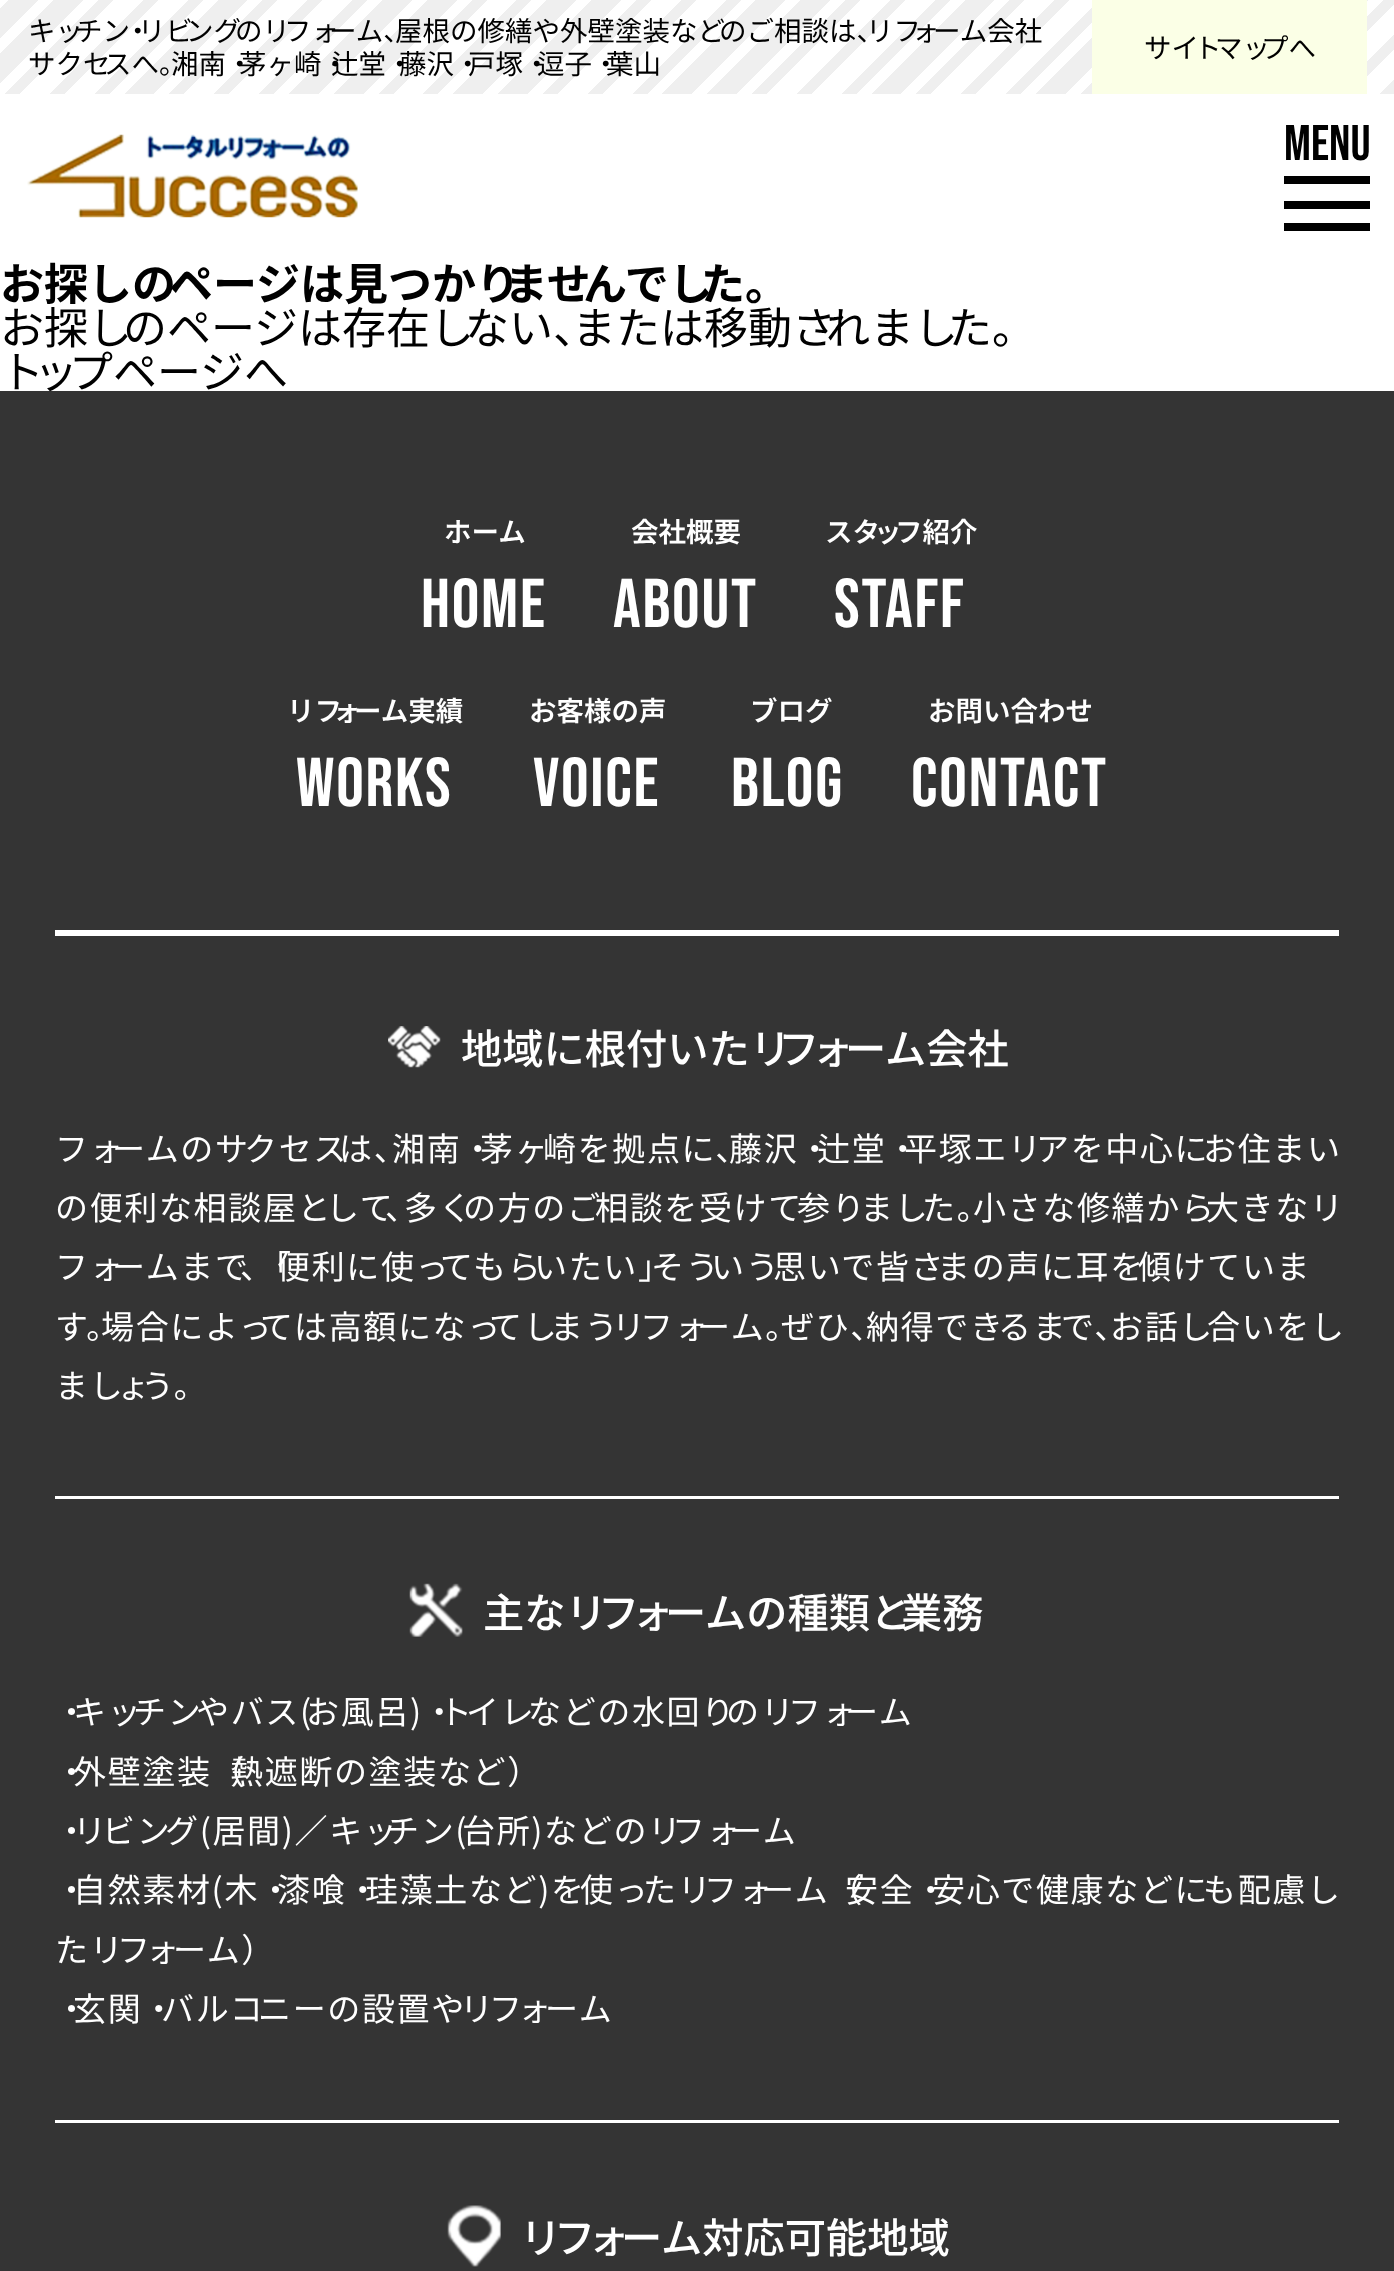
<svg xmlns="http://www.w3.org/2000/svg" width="1394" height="2271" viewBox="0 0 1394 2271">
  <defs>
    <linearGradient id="g1" gradientUnits="userSpaceOnUse" x1="1069" y1="419" x2="322" y2="-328"><stop offset="0" stop-color="rgb(239,239,239)"/><stop offset="0.01" stop-color="rgb(239,239,239)"/><stop offset="0.01" stop-color="rgb(255,255,255)"/><stop offset="0.02" stop-color="rgb(255,255,255)"/><stop offset="0.02" stop-color="rgb(239,239,239)"/><stop offset="0.02" stop-color="rgb(239,239,239)"/><stop offset="0.02" stop-color="rgb(255,255,255)"/><stop offset="0.03" stop-color="rgb(255,255,255)"/><stop offset="0.03" stop-color="rgb(239,239,239)"/><stop offset="0.04" stop-color="rgb(239,239,239)"/><stop offset="0.04" stop-color="rgb(255,255,255)"/><stop offset="0.05" stop-color="rgb(255,255,255)"/><stop offset="0.05" stop-color="rgb(239,239,239)"/><stop offset="0.05" stop-color="rgb(239,239,239)"/><stop offset="0.05" stop-color="rgb(255,255,255)"/><stop offset="0.06" stop-color="rgb(255,255,255)"/><stop offset="0.06" stop-color="rgb(239,239,239)"/><stop offset="0.07" stop-color="rgb(239,239,239)"/><stop offset="0.07" stop-color="rgb(255,255,255)"/><stop offset="0.08" stop-color="rgb(255,255,255)"/><stop offset="0.08" stop-color="rgb(239,239,239)"/><stop offset="0.09" stop-color="rgb(239,239,239)"/><stop offset="0.09" stop-color="rgb(255,255,255)"/><stop offset="0.09" stop-color="rgb(255,255,255)"/><stop offset="0.09" stop-color="rgb(239,239,239)"/><stop offset="0.1" stop-color="rgb(239,239,239)"/><stop offset="0.1" stop-color="rgb(255,255,255)"/><stop offset="0.11" stop-color="rgb(255,255,255)"/><stop offset="0.11" stop-color="rgb(239,239,239)"/><stop offset="0.12" stop-color="rgb(239,239,239)"/><stop offset="0.12" stop-color="rgb(255,255,255)"/><stop offset="0.12" stop-color="rgb(255,255,255)"/><stop offset="0.12" stop-color="rgb(239,239,239)"/><stop offset="0.13" stop-color="rgb(239,239,239)"/><stop offset="0.13" stop-color="rgb(255,255,255)"/><stop offset="0.14" stop-color="rgb(255,255,255)"/><stop offset="0.14" stop-color="rgb(239,239,239)"/><stop offset="0.15" stop-color="rgb(239,239,239)"/><stop offset="0.15" stop-color="rgb(255,255,255)"/><stop offset="0.16" stop-color="rgb(255,255,255)"/><stop offset="0.16" stop-color="rgb(239,239,239)"/><stop offset="0.16" stop-color="rgb(239,239,239)"/><stop offset="0.16" stop-color="rgb(255,255,255)"/><stop offset="0.17" stop-color="rgb(255,255,255)"/><stop offset="0.17" stop-color="rgb(239,239,239)"/><stop offset="0.18" stop-color="rgb(239,239,239)"/><stop offset="0.18" stop-color="rgb(255,255,255)"/><stop offset="0.19" stop-color="rgb(255,255,255)"/><stop offset="0.19" stop-color="rgb(239,239,239)"/><stop offset="0.2" stop-color="rgb(239,239,239)"/><stop offset="0.2" stop-color="rgb(255,255,255)"/><stop offset="0.2" stop-color="rgb(255,255,255)"/><stop offset="0.2" stop-color="rgb(239,239,239)"/><stop offset="0.21" stop-color="rgb(239,239,239)"/><stop offset="0.21" stop-color="rgb(255,255,255)"/><stop offset="0.22" stop-color="rgb(255,255,255)"/><stop offset="0.22" stop-color="rgb(239,239,239)"/><stop offset="0.23" stop-color="rgb(239,239,239)"/><stop offset="0.23" stop-color="rgb(255,255,255)"/><stop offset="0.23" stop-color="rgb(255,255,255)"/><stop offset="0.23" stop-color="rgb(239,239,239)"/><stop offset="0.24" stop-color="rgb(239,239,239)"/><stop offset="0.24" stop-color="rgb(255,255,255)"/><stop offset="0.25" stop-color="rgb(255,255,255)"/><stop offset="0.25" stop-color="rgb(239,239,239)"/><stop offset="0.26" stop-color="rgb(239,239,239)"/><stop offset="0.26" stop-color="rgb(255,255,255)"/><stop offset="0.27" stop-color="rgb(255,255,255)"/><stop offset="0.27" stop-color="rgb(239,239,239)"/><stop offset="0.27" stop-color="rgb(239,239,239)"/><stop offset="0.27" stop-color="rgb(255,255,255)"/><stop offset="0.28" stop-color="rgb(255,255,255)"/><stop offset="0.28" stop-color="rgb(239,239,239)"/><stop offset="0.29" stop-color="rgb(239,239,239)"/><stop offset="0.29" stop-color="rgb(255,255,255)"/><stop offset="0.3" stop-color="rgb(255,255,255)"/><stop offset="0.3" stop-color="rgb(239,239,239)"/><stop offset="0.3" stop-color="rgb(239,239,239)"/><stop offset="0.3" stop-color="rgb(255,255,255)"/><stop offset="0.31" stop-color="rgb(255,255,255)"/><stop offset="0.31" stop-color="rgb(239,239,239)"/><stop offset="0.32" stop-color="rgb(239,239,239)"/><stop offset="0.32" stop-color="rgb(255,255,255)"/><stop offset="0.33" stop-color="rgb(255,255,255)"/><stop offset="0.33" stop-color="rgb(239,239,239)"/><stop offset="0.34" stop-color="rgb(239,239,239)"/><stop offset="0.34" stop-color="rgb(255,255,255)"/><stop offset="0.34" stop-color="rgb(255,255,255)"/><stop offset="0.34" stop-color="rgb(239,239,239)"/><stop offset="0.35" stop-color="rgb(239,239,239)"/><stop offset="0.35" stop-color="rgb(255,255,255)"/><stop offset="0.36" stop-color="rgb(255,255,255)"/><stop offset="0.36" stop-color="rgb(239,239,239)"/><stop offset="0.37" stop-color="rgb(239,239,239)"/><stop offset="0.37" stop-color="rgb(255,255,255)"/><stop offset="0.38" stop-color="rgb(255,255,255)"/><stop offset="0.38" stop-color="rgb(239,239,239)"/><stop offset="0.38" stop-color="rgb(239,239,239)"/><stop offset="0.38" stop-color="rgb(255,255,255)"/><stop offset="0.39" stop-color="rgb(255,255,255)"/><stop offset="0.39" stop-color="rgb(239,239,239)"/><stop offset="0.4" stop-color="rgb(239,239,239)"/><stop offset="0.4" stop-color="rgb(255,255,255)"/><stop offset="0.41" stop-color="rgb(255,255,255)"/><stop offset="0.41" stop-color="rgb(239,239,239)"/><stop offset="0.41" stop-color="rgb(239,239,239)"/><stop offset="0.41" stop-color="rgb(255,255,255)"/><stop offset="0.42" stop-color="rgb(255,255,255)"/><stop offset="0.42" stop-color="rgb(239,239,239)"/><stop offset="0.43" stop-color="rgb(239,239,239)"/><stop offset="0.43" stop-color="rgb(255,255,255)"/><stop offset="0.44" stop-color="rgb(255,255,255)"/><stop offset="0.44" stop-color="rgb(239,239,239)"/><stop offset="0.45" stop-color="rgb(239,239,239)"/><stop offset="0.45" stop-color="rgb(255,255,255)"/><stop offset="0.45" stop-color="rgb(255,255,255)"/><stop offset="0.45" stop-color="rgb(239,239,239)"/><stop offset="0.46" stop-color="rgb(239,239,239)"/><stop offset="0.46" stop-color="rgb(255,255,255)"/><stop offset="0.47" stop-color="rgb(255,255,255)"/><stop offset="0.47" stop-color="rgb(239,239,239)"/><stop offset="0.48" stop-color="rgb(239,239,239)"/><stop offset="0.48" stop-color="rgb(255,255,255)"/><stop offset="0.48" stop-color="rgb(255,255,255)"/><stop offset="0.48" stop-color="rgb(239,239,239)"/><stop offset="0.49" stop-color="rgb(239,239,239)"/><stop offset="0.49" stop-color="rgb(255,255,255)"/><stop offset="0.5" stop-color="rgb(255,255,255)"/><stop offset="0.5" stop-color="rgb(239,239,239)"/><stop offset="0.51" stop-color="rgb(239,239,239)"/><stop offset="0.51" stop-color="rgb(255,255,255)"/><stop offset="0.52" stop-color="rgb(255,255,255)"/><stop offset="0.52" stop-color="rgb(239,239,239)"/><stop offset="0.52" stop-color="rgb(239,239,239)"/><stop offset="0.52" stop-color="rgb(255,255,255)"/><stop offset="0.53" stop-color="rgb(255,255,255)"/><stop offset="0.53" stop-color="rgb(239,239,239)"/><stop offset="0.54" stop-color="rgb(239,239,239)"/><stop offset="0.54" stop-color="rgb(255,255,255)"/><stop offset="0.55" stop-color="rgb(255,255,255)"/><stop offset="0.55" stop-color="rgb(239,239,239)"/><stop offset="0.55" stop-color="rgb(239,239,239)"/><stop offset="0.55" stop-color="rgb(255,255,255)"/><stop offset="0.56" stop-color="rgb(255,255,255)"/><stop offset="0.56" stop-color="rgb(239,239,239)"/><stop offset="0.57" stop-color="rgb(239,239,239)"/><stop offset="0.57" stop-color="rgb(255,255,255)"/><stop offset="0.58" stop-color="rgb(255,255,255)"/><stop offset="0.58" stop-color="rgb(239,239,239)"/><stop offset="0.59" stop-color="rgb(239,239,239)"/><stop offset="0.59" stop-color="rgb(255,255,255)"/><stop offset="0.59" stop-color="rgb(255,255,255)"/><stop offset="0.59" stop-color="rgb(239,239,239)"/><stop offset="0.6" stop-color="rgb(239,239,239)"/><stop offset="0.6" stop-color="rgb(255,255,255)"/><stop offset="0.61" stop-color="rgb(255,255,255)"/><stop offset="0.61" stop-color="rgb(239,239,239)"/><stop offset="0.62" stop-color="rgb(239,239,239)"/><stop offset="0.62" stop-color="rgb(255,255,255)"/><stop offset="0.62" stop-color="rgb(255,255,255)"/><stop offset="0.62" stop-color="rgb(239,239,239)"/><stop offset="0.63" stop-color="rgb(239,239,239)"/><stop offset="0.63" stop-color="rgb(255,255,255)"/><stop offset="0.64" stop-color="rgb(255,255,255)"/><stop offset="0.64" stop-color="rgb(239,239,239)"/><stop offset="0.65" stop-color="rgb(239,239,239)"/><stop offset="0.65" stop-color="rgb(255,255,255)"/><stop offset="0.66" stop-color="rgb(255,255,255)"/><stop offset="0.66" stop-color="rgb(239,239,239)"/><stop offset="0.66" stop-color="rgb(239,239,239)"/><stop offset="0.66" stop-color="rgb(255,255,255)"/><stop offset="0.67" stop-color="rgb(255,255,255)"/><stop offset="0.67" stop-color="rgb(239,239,239)"/><stop offset="0.68" stop-color="rgb(239,239,239)"/><stop offset="0.68" stop-color="rgb(255,255,255)"/><stop offset="0.69" stop-color="rgb(255,255,255)"/><stop offset="0.69" stop-color="rgb(239,239,239)"/><stop offset="0.7" stop-color="rgb(239,239,239)"/><stop offset="0.7" stop-color="rgb(255,255,255)"/><stop offset="0.7" stop-color="rgb(255,255,255)"/><stop offset="0.7" stop-color="rgb(239,239,239)"/><stop offset="0.71" stop-color="rgb(239,239,239)"/><stop offset="0.71" stop-color="rgb(255,255,255)"/><stop offset="0.72" stop-color="rgb(255,255,255)"/><stop offset="0.72" stop-color="rgb(239,239,239)"/><stop offset="0.73" stop-color="rgb(239,239,239)"/><stop offset="0.73" stop-color="rgb(255,255,255)"/><stop offset="0.73" stop-color="rgb(255,255,255)"/><stop offset="0.73" stop-color="rgb(239,239,239)"/><stop offset="0.74" stop-color="rgb(239,239,239)"/><stop offset="0.74" stop-color="rgb(255,255,255)"/><stop offset="0.75" stop-color="rgb(255,255,255)"/><stop offset="0.75" stop-color="rgb(239,239,239)"/><stop offset="0.76" stop-color="rgb(239,239,239)"/><stop offset="0.76" stop-color="rgb(255,255,255)"/><stop offset="0.77" stop-color="rgb(255,255,255)"/><stop offset="0.77" stop-color="rgb(239,239,239)"/><stop offset="0.77" stop-color="rgb(239,239,239)"/><stop offset="0.77" stop-color="rgb(255,255,255)"/><stop offset="0.78" stop-color="rgb(255,255,255)"/><stop offset="0.78" stop-color="rgb(239,239,239)"/><stop offset="0.79" stop-color="rgb(239,239,239)"/><stop offset="0.79" stop-color="rgb(255,255,255)"/><stop offset="0.8" stop-color="rgb(255,255,255)"/><stop offset="0.8" stop-color="rgb(239,239,239)"/><stop offset="0.8" stop-color="rgb(239,239,239)"/><stop offset="0.8" stop-color="rgb(255,255,255)"/><stop offset="0.81" stop-color="rgb(255,255,255)"/><stop offset="0.81" stop-color="rgb(239,239,239)"/><stop offset="0.82" stop-color="rgb(239,239,239)"/><stop offset="0.82" stop-color="rgb(255,255,255)"/><stop offset="0.83" stop-color="rgb(255,255,255)"/><stop offset="0.83" stop-color="rgb(239,239,239)"/><stop offset="0.84" stop-color="rgb(239,239,239)"/><stop offset="0.84" stop-color="rgb(255,255,255)"/><stop offset="0.84" stop-color="rgb(255,255,255)"/><stop offset="0.84" stop-color="rgb(239,239,239)"/><stop offset="0.85" stop-color="rgb(239,239,239)"/><stop offset="0.85" stop-color="rgb(255,255,255)"/><stop offset="0.86" stop-color="rgb(255,255,255)"/><stop offset="0.86" stop-color="rgb(239,239,239)"/><stop offset="0.87" stop-color="rgb(239,239,239)"/><stop offset="0.87" stop-color="rgb(255,255,255)"/><stop offset="0.88" stop-color="rgb(255,255,255)"/><stop offset="0.88" stop-color="rgb(239,239,239)"/><stop offset="0.88" stop-color="rgb(239,239,239)"/><stop offset="0.88" stop-color="rgb(255,255,255)"/><stop offset="0.89" stop-color="rgb(255,255,255)"/><stop offset="0.89" stop-color="rgb(239,239,239)"/><stop offset="0.9" stop-color="rgb(239,239,239)"/><stop offset="0.9" stop-color="rgb(255,255,255)"/><stop offset="0.91" stop-color="rgb(255,255,255)"/><stop offset="0.91" stop-color="rgb(239,239,239)"/><stop offset="0.91" stop-color="rgb(239,239,239)"/><stop offset="0.91" stop-color="rgb(255,255,255)"/><stop offset="0.92" stop-color="rgb(255,255,255)"/><stop offset="0.92" stop-color="rgb(239,239,239)"/><stop offset="0.93" stop-color="rgb(239,239,239)"/><stop offset="0.93" stop-color="rgb(255,255,255)"/><stop offset="0.94" stop-color="rgb(255,255,255)"/><stop offset="0.94" stop-color="rgb(239,239,239)"/><stop offset="0.95" stop-color="rgb(239,239,239)"/><stop offset="0.95" stop-color="rgb(255,255,255)"/><stop offset="0.95" stop-color="rgb(255,255,255)"/><stop offset="0.95" stop-color="rgb(239,239,239)"/><stop offset="0.96" stop-color="rgb(239,239,239)"/><stop offset="0.96" stop-color="rgb(255,255,255)"/><stop offset="0.97" stop-color="rgb(255,255,255)"/><stop offset="0.97" stop-color="rgb(239,239,239)"/><stop offset="0.98" stop-color="rgb(239,239,239)"/><stop offset="0.98" stop-color="rgb(255,255,255)"/><stop offset="0.98" stop-color="rgb(255,255,255)"/><stop offset="0.98" stop-color="rgb(239,239,239)"/><stop offset="0.99" stop-color="rgb(239,239,239)"/><stop offset="0.99" stop-color="rgb(255,255,255)"/><stop offset="1" stop-color="rgb(255,255,255)"/></linearGradient>
  </defs>
  <rect width="100%" height="100%" fill="rgb(255,255,255)"/>
  <rect x="0" y="0" width="1394" height="94" fill="url(#g1)"/>
  <g font-family="Noto Sans JP" font-size="27.5" fill="rgb(0,0,0)">
    <text x="28" y="41">キッ</text>
    <text x="75" y="41">チン</text>
    <text x="124" y="41">・</text>
    <text x="138" y="41">リビ</text>
    <text x="186" y="41">ング</text>
    <text x="235" y="41">のリ</text>
    <text x="284" y="41">フォ</text>
    <text x="329" y="41">ーム、</text>
    <text x="395" y="41">屋根の修繕や外壁塗装など</text>
    <text x="719" y="41">のご相談は、</text>
    <text x="866" y="41">リフ</text>
    <text x="912" y="41">ォ</text>
    <text x="933" y="41">ーム会社</text>
    <text x="28" y="74">サクセ</text>
    <text x="104" y="74">スへ。</text>
    <text x="171" y="74">湘南・</text>
    <text x="239" y="74">茅ヶ崎・</text>
    <text x="331" y="74">辻堂・</text>
    <text x="399" y="74">藤沢・</text>
    <text x="468" y="74">戸塚・</text>
    <text x="537" y="74">逗子・</text>
    <text x="606" y="74">葉山</text>
  </g>
  <rect x="1092" y="0" width="275" height="94" fill="rgb(251,255,230)"/>
  <text x="1144" y="58" font-family="Noto Sans JP" font-size="27.5" fill="rgb(0,0,0)">サイ</text>
  <text x="1194" y="58" font-family="Noto Sans JP" font-size="27.5" fill="rgb(0,0,0)">ト</text>
  <text x="1215" y="58" font-family="Noto Sans JP" font-size="27.5" fill="rgb(0,0,0)">マッ</text>
  <text x="1261" y="58" font-family="Noto Sans JP" font-size="27.5" fill="rgb(0,0,0)">プへ</text>
  <image x="27" y="134" width="331" height="84" href="pic1.png"/>
  <text x="1284" y="160" font-family="Bebas Neue" font-size="50" fill="rgb(0,0,0)">MENU</text>
  <rect x="1284" y="176" width="86" height="8" fill="rgb(0,0,0)"/>
  <rect x="1284" y="201" width="86" height="8" fill="rgb(0,0,0)"/>
  <rect x="1284" y="223" width="86" height="8" fill="rgb(0,0,0)"/>
  <text x="0" y="300" font-family="Noto Sans JP" font-size="44" font-weight="bold" fill="rgb(0,0,0)">お探しの</text>
  <text x="169" y="300" font-family="Noto Sans JP" font-size="44" font-weight="bold" fill="rgb(0,0,0)">ページは見つかり</text>
  <text x="504" y="300" font-family="Noto Sans JP" font-size="44" font-weight="bold" fill="rgb(0,0,0)">ませ</text>
  <text x="583" y="300" font-family="Noto Sans JP" font-size="44" font-weight="bold" fill="rgb(0,0,0)">んでし</text>
  <text x="701" y="300" font-family="Noto Sans JP" font-size="44" font-weight="bold" fill="rgb(0,0,0)">た。</text>
  <text x="0" y="344" font-family="Noto Sans JP" font-size="44" fill="rgb(0,0,0)">お探し</text>
  <text x="123" y="344" font-family="Noto Sans JP" font-size="44" fill="rgb(0,0,0)">のページは存在し</text>
  <text x="465" y="344" font-family="Noto Sans JP" font-size="44" fill="rgb(0,0,0)">ない、</text>
  <text x="572" y="344" font-family="Noto Sans JP" font-size="44" fill="rgb(0,0,0)">または移動さ</text>
  <text x="826" y="344" font-family="Noto Sans JP" font-size="44" fill="rgb(0,0,0)">れまし</text>
  <text x="948" y="344" font-family="Noto Sans JP" font-size="44" fill="rgb(0,0,0)">た。</text>
  <rect x="0" y="391" width="1394" height="1880" fill="rgb(52,52,52)"/>
  <text x="0" y="388" font-family="Noto Sans JP" font-size="44" fill="rgb(0,0,0)">ト</text>
  <text x="34" y="388" font-family="Noto Sans JP" font-size="44" fill="rgb(0,0,0)">ッ</text>
  <text x="69" y="388" font-family="Noto Sans JP" font-size="44" fill="rgb(0,0,0)">プページへ</text>
  <rect x="55" y="930" width="1284" height="6" fill="rgb(255,255,255)"/>
  <text x="444" y="542" font-family="Noto Sans JP" font-size="27.5" font-weight="600" fill="rgb(255,255,255)">ホーム</text>
  <text x="421" y="627" font-family="Bebas Neue" font-size="69" letter-spacing="1.75" fill="rgb(255,255,255)">HOME</text>
  <text x="631" y="542" font-family="Noto Sans JP" font-size="27.5" font-weight="600" fill="rgb(255,255,255)">会社概要</text>
  <text x="613" y="627" font-family="Bebas Neue" font-size="69" letter-spacing="1.75" fill="rgb(255,255,255)">ABOUT</text>
  <text x="825" y="542" font-family="Noto Sans JP" font-size="27.5" font-weight="600" fill="rgb(255,255,255)">スタ</text>
  <text x="874" y="542" font-family="Noto Sans JP" font-size="27.5" font-weight="600" fill="rgb(255,255,255)">ッ</text>
  <text x="895" y="542" font-family="Noto Sans JP" font-size="27.5" font-weight="600" fill="rgb(255,255,255)">フ紹介</text>
  <text x="834" y="627" font-family="Bebas Neue" font-size="69" letter-spacing="1.75" fill="rgb(255,255,255)">STAFF</text>
  <text x="287" y="721" font-family="Noto Sans JP" font-size="27.5" font-weight="600" fill="rgb(255,255,255)">リフ</text>
  <text x="333" y="721" font-family="Noto Sans JP" font-size="27.5" font-weight="600" fill="rgb(255,255,255)">ォ</text>
  <text x="354" y="721" font-family="Noto Sans JP" font-size="27.5" font-weight="600" fill="rgb(255,255,255)">ーム実績</text>
  <text x="296" y="806" font-family="Bebas Neue" font-size="69" letter-spacing="1.75" fill="rgb(255,255,255)">WORKS</text>
  <text x="529" y="721" font-family="Noto Sans JP" font-size="27.5" font-weight="600" fill="rgb(255,255,255)">お客様の声</text>
  <text x="533" y="806" font-family="Bebas Neue" font-size="69" letter-spacing="1.75" fill="rgb(255,255,255)">VOICE</text>
  <text x="750" y="721" font-family="Noto Sans JP" font-size="27.5" font-weight="600" fill="rgb(255,255,255)">ブログ</text>
  <text x="731" y="806" font-family="Bebas Neue" font-size="69" letter-spacing="1.75" fill="rgb(255,255,255)">BLOG</text>
  <text x="928" y="721" font-family="Noto Sans JP" font-size="27.5" font-weight="600" fill="rgb(255,255,255)">お問い合わせ</text>
  <text x="911" y="806" font-family="Bebas Neue" font-size="69" letter-spacing="1.75" fill="rgb(255,255,255)">CONTACT</text>
  <rect x="55" y="1496" width="1284" height="3" fill="rgb(255,255,255)"/>
  <image x="388" y="1026" width="53" height="42" href="pic2.png"/>
  <text x="461" y="1064" font-family="Noto Sans JP" font-size="41.25" font-weight="500" fill="rgb(255,255,255)">地域に根付いたリ</text>
  <text x="778" y="1064" font-family="Noto Sans JP" font-size="41.25" font-weight="500" fill="rgb(255,255,255)">フ</text>
  <text x="812" y="1064" font-family="Noto Sans JP" font-size="41.25" font-weight="500" fill="rgb(255,255,255)">ォ</text>
  <text x="845" y="1064" font-family="Noto Sans JP" font-size="41.25" font-weight="500" fill="rgb(255,255,255)">ーム会社</text>
  <g font-family="Noto Sans JP" font-size="33" letter-spacing="1.65" fill="rgb(255,255,255)">
    <text x="55" y="1161">フォ</text>
    <text x="112" y="1161">ームのサ</text>
    <text x="244" y="1161">クセス</text>
    <text x="339" y="1161">は、</text>
    <text x="392" y="1161">湘南・</text>
    <text x="480" y="1161">茅ヶ</text>
    <text x="543" y="1161">崎を拠点に、</text>
    <text x="729" y="1161">藤沢・</text>
    <text x="817" y="1161">辻堂・</text>
    <text x="904" y="1161">平塚エリ</text>
    <text x="1036" y="1161">アを中心に</text>
    <text x="1203" y="1161">お住まい</text>
    <text x="55" y="1220">の便利な相談屋と</text>
    <text x="326" y="1220">して</text>
    <text x="385" y="1220">、</text>
    <text x="404" y="1220">多く</text>
    <text x="463" y="1220">の方のご</text>
    <text x="595" y="1220">相談を受けて</text>
    <text x="797" y="1220">参り</text>
    <text x="860" y="1220">まし</text>
    <text x="922" y="1220">た。</text>
    <text x="973" y="1220">小さな修繕から</text>
    <text x="1206" y="1220">大きなリ</text>
    <text x="55" y="1279">フォ</text>
    <text x="112" y="1279">ームまで</text>
    <text x="240" y="1279">、</text>
    <text x="258" y="1279">「</text>
    <text x="277" y="1279">便利に使っ</text>
    <text x="440" y="1279">てもら</text>
    <text x="534" y="1279">いたい」</text>
    <text x="651" y="1279">そう</text>
    <text x="711" y="1279">いう</text>
    <text x="773" y="1279">思いで皆さ</text>
    <text x="937" y="1279">まの声に耳を</text>
    <text x="1138" y="1279">傾けていま</text>
    <text x="55" y="1339">す。</text>
    <text x="101" y="1339">場合によっ</text>
    <text x="260" y="1339">ては高額になっ</text>
    <text x="489" y="1339">てし</text>
    <text x="550" y="1339">まう</text>
    <text x="612" y="1339">リ</text>
    <text x="640" y="1339">フォ</text>
    <text x="697" y="1339">ーム。</text>
    <text x="781" y="1339">ぜひ、</text>
    <text x="866" y="1339">納得でき</text>
    <text x="998" y="1339">るま</text>
    <text x="1061" y="1339">で、</text>
    <text x="1110" y="1339">お話し</text>
    <text x="1207" y="1339">合いをし</text>
    <text x="55" y="1398">まし</text>
    <text x="117" y="1398">ょ</text>
    <text x="141" y="1398">う。</text>
  </g>
  <rect x="55" y="2120" width="1284" height="3" fill="rgb(255,255,255)"/>
  <image x="409" y="1583" width="54" height="54" href="pic3.png"/>
  <text x="483" y="1628" font-family="Noto Sans JP" font-size="41.25" font-weight="500" fill="rgb(255,255,255)">主なリ</text>
  <text x="598" y="1628" font-family="Noto Sans JP" font-size="41.25" font-weight="500" fill="rgb(255,255,255)">フ</text>
  <text x="632" y="1628" font-family="Noto Sans JP" font-size="41.25" font-weight="500" fill="rgb(255,255,255)">ォ</text>
  <text x="665" y="1628" font-family="Noto Sans JP" font-size="41.25" font-weight="500" fill="rgb(255,255,255)">ームの種類と</text>
  <text x="901" y="1628" font-family="Noto Sans JP" font-size="41.25" font-weight="500" fill="rgb(255,255,255)">業務</text>
  <g font-family="Noto Sans JP" font-size="33" letter-spacing="1.65" fill="rgb(255,255,255)">
    <text x="55" y="1724">・</text>
    <text x="73" y="1724">キッ</text>
    <text x="133" y="1724">チン</text>
    <text x="196" y="1724">やバス(</text>
    <text x="306" y="1724">お風呂)・</text>
    <text x="439" y="1724">ト</text>
    <text x="466" y="1724">イレ</text>
    <text x="528" y="1724">などの水回り</text>
    <text x="726" y="1724">のリ</text>
    <text x="788" y="1724">フォ</text>
    <text x="845" y="1724">ーム</text>
    <text x="55" y="1784">・</text>
    <text x="73" y="1784">外壁塗装（</text>
    <text x="230" y="1784">熱遮断の塗装など）</text>
    <text x="55" y="1843">・</text>
    <text x="73" y="1843">リ</text>
    <text x="102" y="1843">ビン</text>
    <text x="165" y="1843">グ(居間)／キッ</text>
    <text x="386" y="1843">チン(</text>
    <text x="462" y="1843">台所)などのリ</text>
    <text x="672" y="1843">フォ</text>
    <text x="729" y="1843">ーム</text>
    <text x="55" y="1902">・</text>
    <text x="73" y="1902">自然素材(木・</text>
    <text x="277" y="1902">漆喰・</text>
    <text x="365" y="1902">珪藻土など)を</text>
    <text x="580" y="1902">使っ</text>
    <text x="643" y="1902">たリ</text>
    <text x="704" y="1902">フォ</text>
    <text x="761" y="1902">ーム（</text>
    <text x="845" y="1902">安全・</text>
    <text x="932" y="1902">安心で健康などに</text>
    <text x="1203" y="1902">も配慮し</text>
    <text x="55" y="1962">たリ</text>
    <text x="117" y="1962">フ</text>
    <text x="146" y="1962">ォ</text>
    <text x="173" y="1962">ーム）</text>
    <text x="55" y="2021">・</text>
    <text x="73" y="2021">玄関・</text>
    <text x="161" y="2021">バルコ</text>
    <text x="258" y="2021">ニーの設置や</text>
    <text x="460" y="2021">リ</text>
    <text x="489" y="2021">フ</text>
    <text x="518" y="2021">ォ</text>
    <text x="545" y="2021">ーム</text>
  </g>
  <image x="447" y="2205" width="54" height="62" href="pic4.png"/>
  <text x="520" y="2253" font-family="Noto Sans JP" font-size="41.25" font-weight="500" fill="rgb(255,255,255)">リ</text>
  <text x="554" y="2253" font-family="Noto Sans JP" font-size="41.25" font-weight="500" fill="rgb(255,255,255)">フ</text>
  <text x="588" y="2253" font-family="Noto Sans JP" font-size="41.25" font-weight="500" fill="rgb(255,255,255)">ォ</text>
  <text x="621" y="2253" font-family="Noto Sans JP" font-size="41.25" font-weight="500" fill="rgb(255,255,255)">ーム対応可能地域</text>
</svg>
